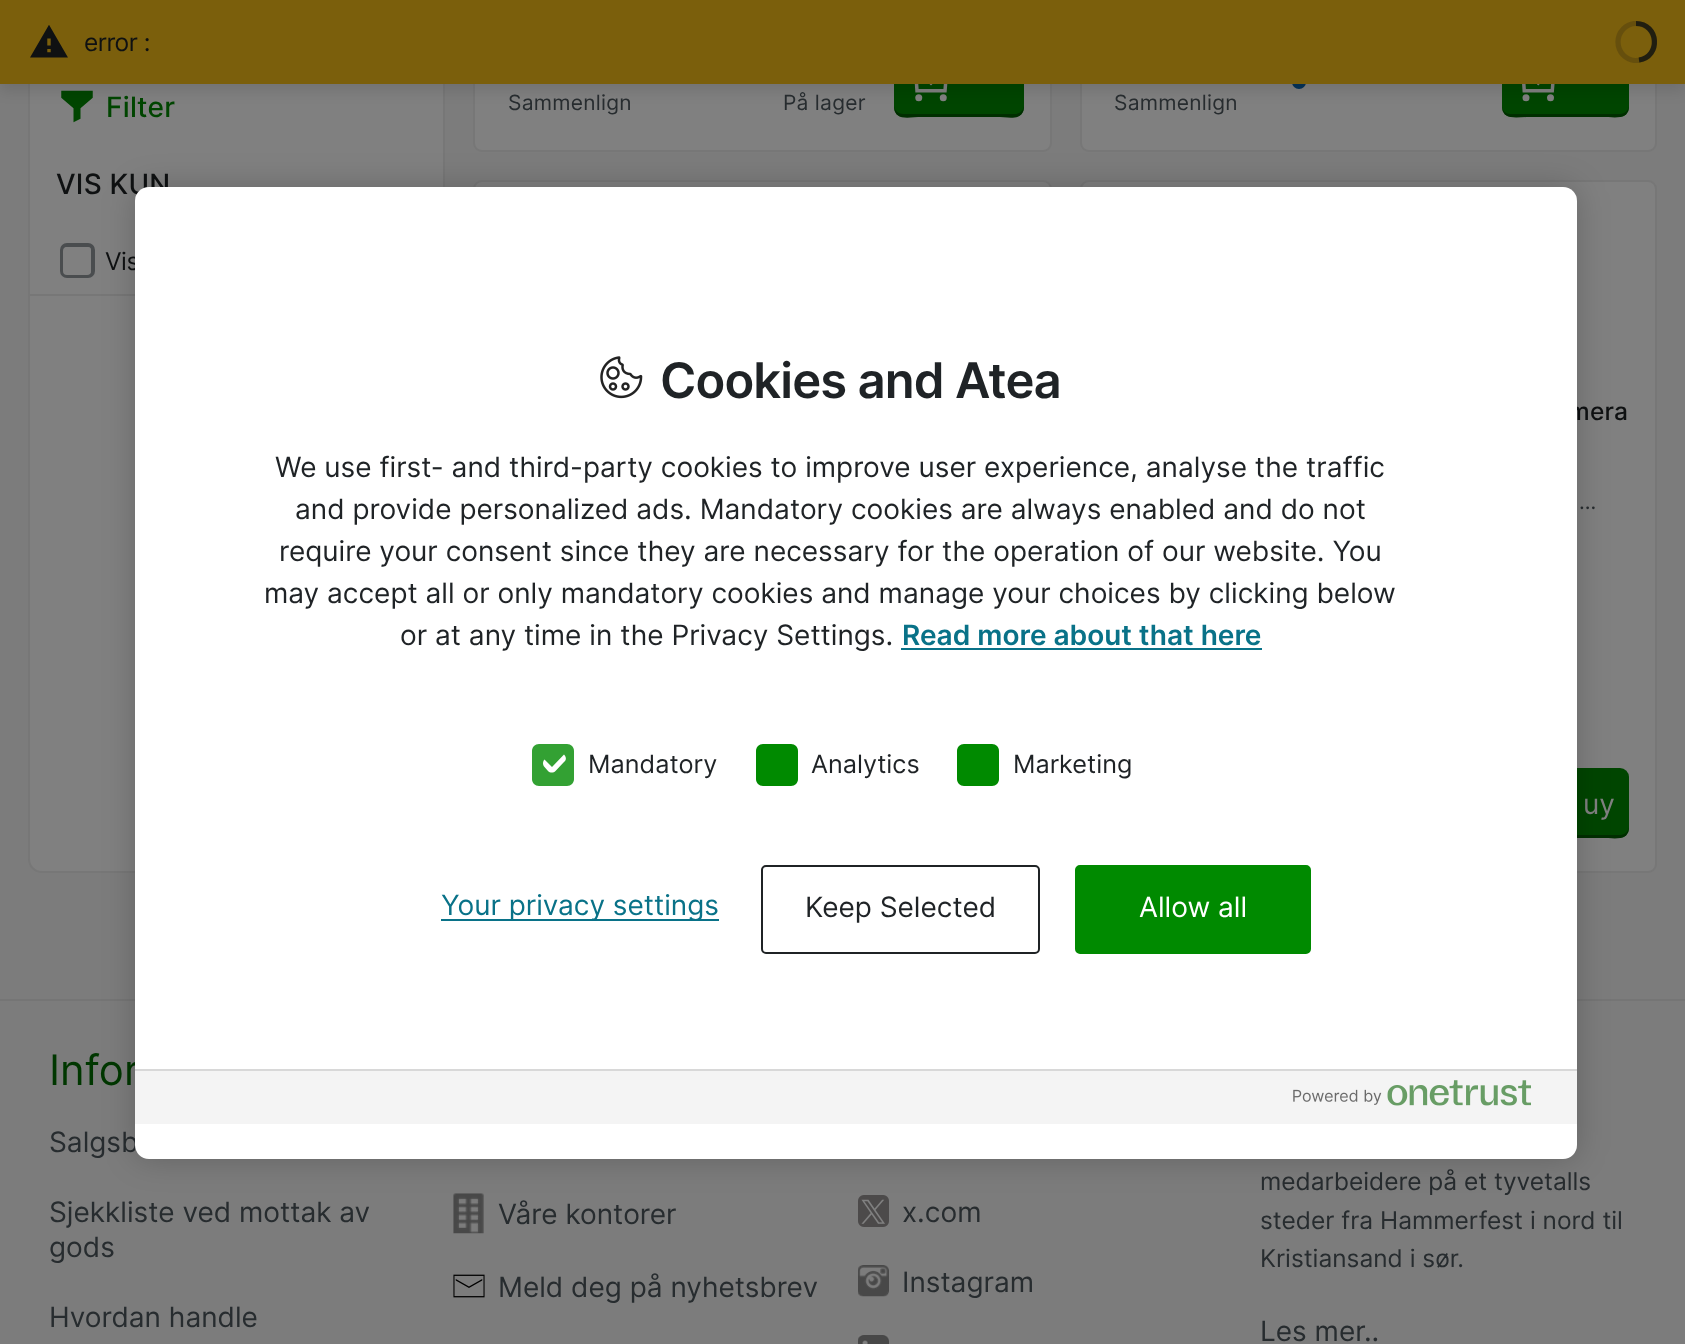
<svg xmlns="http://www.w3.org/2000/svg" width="1685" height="1344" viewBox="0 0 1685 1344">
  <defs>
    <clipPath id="clip1"><rect x="1615" y="21" width="42" height="42"/></clipPath>
    <clipPath id="clip2"><rect x="28" y="142" width="417" height="154"/></clipPath>
  </defs>
  <rect width="100%" height="100%" fill="rgb(124,124,124)"/>
  <rect x="29" y="-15" width="415" height="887" rx="13" fill="rgb(128,128,128)" stroke="rgb(119,119,119)" stroke-width="2"/>
  <image x="61" y="90" width="32" height="33" href="pic2.png"/>
  <rect x="474" y="-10" width="577" height="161" rx="8" fill="rgb(128,128,128)" stroke="rgb(119,119,119)" stroke-width="2"/>
  <rect x="894" y="47" width="130" height="70" rx="9" fill="rgb(0,69,0)"/>
  <path d="M894 105C894 122 908 117 922 117H996C1010 117 1024 122 1024 105C1024 110 1020 114 1015 114H903C898 114 894 110 894 105Z" fill="rgb(0,46,0)"/>
  <image x="914" y="84" width="34" height="18" href="pic3.png"/>
  <rect x="1081" y="-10" width="575" height="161" rx="8" fill="rgb(128,128,128)" stroke="rgb(119,119,119)" stroke-width="2"/>
  <circle cx="1299" cy="82" r="7" fill="rgb(5,51,89)"/>
  <rect x="1502" y="47" width="127" height="70" rx="9" fill="rgb(0,69,0)"/>
  <path d="M1502 105C1502 121 1516 117 1529 117H1602C1615 117 1629 121 1629 105C1629 110 1625 114 1620 114H1510C1505 114 1502 110 1502 105Z" fill="rgb(0,46,0)"/>
  <image x="1522" y="84" width="33" height="18" href="pic4.png"/>
  <rect x="0" y="7" width="1685" height="84" fill="rgba(0,0,0,0.1)" filter="blur(7px)"/>
  <rect x="0" y="0" width="1685" height="84" fill="rgb(123,95,12)"/>
  <image x="30" y="25" width="38" height="33" href="pic1.png"/>
  <text x="84" y="51" font-family="Inter" font-size="24.5" letter-spacing="-0.5" fill="rgb(15,17,18)">error :</text>
  <g clip-path="url(#clip1)">
    <path d="M1636 23.5C1646.5 23.5 1654.5 32 1654.5 42C1654.5 52 1646.5 60.5 1636 60.5C1626 60.5 1618 52 1618 42C1618 32 1626 23.5 1636 23.5" fill="none" stroke="rgb(102,79,13)" stroke-width="5.2"/>
  </g>
  <path d="M1636 23.5C1659 23.5 1661 57 1639 60" fill="none" stroke="rgba(15,17,18,0.8)" stroke-width="5.2"/>
  <text x="106" y="117" font-family="Inter" font-size="28" font-weight="500" letter-spacing="0.25" fill="rgb(0,69,0)">Filter</text>
  <g clip-path="url(#clip2)">
    <path d="M-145-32H618V469H-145ZM28 138H444L445 139V293L444 294H28L27 293V139Z" fill="rgb(119,119,119)" fill-rule="evenodd"/>
  </g>
  <text x="56" y="194" font-family="Inter" font-size="28" font-weight="500" letter-spacing="0.25" fill="rgb(15,17,18)">VIS KUN</text>
  <rect x="62" y="245" width="31" height="31" rx="5" fill="none" stroke="rgb(74,77,79)" stroke-width="4"/>
  <rect x="63" y="247" width="28" height="28" rx="4" fill="rgb(128,128,128)"/>
  <text x="105" y="270" font-family="Inter" font-size="24.5" letter-spacing="-0.5" fill="rgb(15,17,18)">Vis</text>
  <g font-family="Inter" font-size="21" letter-spacing="0.25" fill="rgb(39,44,47)">
    <text x="508" y="110">Sammenlign</text>
    <text x="783" y="110">På lager</text>
    <text x="1114" y="110">Sammenlign</text>
  </g>
  <rect x="474" y="181" width="577" height="691" rx="8" fill="rgb(128,128,128)" stroke="rgb(119,119,119)" stroke-width="2"/>
  <rect x="1081" y="181" width="575" height="691" rx="8" fill="rgb(128,128,128)" stroke="rgb(119,119,119)" stroke-width="2"/>
  <text x="1568" y="420" font-family="Inter" font-size="24.5" font-weight="500" letter-spacing="0.25" fill="rgb(15,17,18)">mera</text>
  <text x="1579" y="509" font-family="Inter" font-size="21" letter-spacing="0.25" fill="rgb(39,44,47)">…</text>
  <rect x="1502" y="768" width="127" height="70" rx="9" fill="rgb(0,69,0)"/>
  <path d="M1502 826C1502 842 1516 838 1529 838H1602C1615 838 1629 842 1629 826C1629 831 1625 835 1620 835H1510C1505 835 1502 831 1502 826Z" fill="rgb(0,46,0)"/>
  <text x="1583" y="814" font-family="Inter" font-size="28" fill="rgb(128,128,128)">uy</text>
  <rect x="0" y="999" width="1685" height="2" fill="rgb(117,117,117)"/>
  <text x="49" y="1085" font-family="Inter" font-size="42" fill="rgb(0,55,0)">Infor</text>
  <g font-family="Inter" font-size="28" fill="rgb(39,44,47)">
    <text x="49" y="1152">Salgsb</text>
    <text>
      <tspan x="49" y="1222">Sjekkliste ved mottak av</tspan>
      <tspan x="49" y="1257">gods</tspan>
    </text>
    <text x="49" y="1327">Hvordan handle</text>
  </g>
  <image x="453" y="1193" width="31" height="41" href="pic5.png"/>
  <text x="498" y="1224" font-family="Inter" font-size="28" fill="rgb(39,44,47)">Våre kontorer</text>
  <image x="453" y="1274" width="32" height="24" href="pic6.png"/>
  <text x="498" y="1297" font-family="Inter" font-size="28" fill="rgb(39,44,47)">Meld deg på nyhetsbrev</text>
  <image x="858" y="1195" width="31" height="32" href="pic7.png"/>
  <text x="902" y="1222" font-family="Inter" font-size="28" fill="rgb(39,44,47)">x.com</text>
  <image x="858" y="1265" width="31" height="32" href="pic8.png"/>
  <text x="902" y="1292" font-family="Inter" font-size="28" fill="rgb(39,44,47)">Instagram</text>
  <image x="858" y="1335" width="31" height="9" href="pic9.png"/>
  <g font-family="Inter" font-size="24.5" fill="rgb(39,44,47)">
    <text>
      <tspan x="1260" y="1190">medarbeidere på et tyvetalls</tspan>
      <tspan x="1260" y="1229">steder fra Hammerfest i nord til</tspan>
      <tspan x="1260" y="1267">Kristiansand i sør.</tspan>
    </text>
  </g>
  <text x="1260" y="1341" font-family="Inter" font-size="28" fill="rgb(39,44,47)">Les mer..</text>
  <rect x="135" y="187" width="1442" height="972" rx="14" fill="rgba(0,0,0,0.2)" filter="blur(16px)"/>
  <rect x="135" y="187" width="1442" height="972" rx="14" fill="rgb(255,255,255)"/>
  <image x="600" y="356" width="43" height="43" href="pic10.png"/>
  <text x="660" y="398" font-family="Inter" font-size="49" font-weight="600" letter-spacing="-0.9" fill="rgb(31,35,38)">Cookies and Atea</text>
  <g font-family="Inter" font-size="28" fill="rgb(31,35,38)">
    <text x="275" y="477">We use first- and third-party cookies to improve user experience, analyse the traffic</text>
    <text x="295" y="519">and provide personalized ads. Mandatory cookies are always enabled and do not</text>
    <text x="279" y="561">require your consent since they are necessary for the operation of our website. You</text>
    <text x="264" y="603">may accept all or only mandatory cookies and manage your choices by clicking below</text>
    <text x="400" y="645">or at any time in the Privacy Settings.</text>
  </g>
  <text x="902" y="645" font-family="Inter" font-size="28" font-weight="600" fill="rgb(9,114,136)">Read more about that here</text>
  <rect x="901" y="648" width="361" height="2" fill="rgb(9,114,136)"/>
  <path d="M539 744H567C571 744 574 747 574 751V779C574 783 571 786 567 786H539C535 786 532 783 532 779V751C532 747 535 744 539 744Z" fill="rgb(51,161,51)"/>
  <path d="M544.5 759.5L553 751C555 749 558.5 749 560.5 751L564 754.5C566.5 757 566.5 760 564 762L555.5 771C553.5 773 550 773 548 771L544.5 767C542.5 765 542.5 761.5 544.5 759.5ZM544.5 759.5L553 751C555 749 558.5 749 560.5 751L564 754.5L552 767Z" fill="rgb(255,255,255)" fill-rule="evenodd"/>
  <text x="588" y="773" font-family="Inter" font-size="25.25" fill="rgb(31,35,38)">Mandatory</text>
  <path d="M763 744H791C795 744 798 747 798 751V779C798 783 795 786 791 786H763C759 786 756 783 756 779V751C756 747 759 744 763 744Z" fill="rgb(0,138,0)"/>
  <text x="811" y="773" font-family="Inter" font-size="25.25" fill="rgb(31,35,38)">Analytics</text>
  <path d="M964 744H992C996 744 999 747 999 751V779C999 783 996 786 992 786H964C960 786 957 783 957 779V751C957 747 960 744 964 744Z" fill="rgb(0,138,0)"/>
  <text x="1013" y="773" font-family="Inter" font-size="25.25" fill="rgb(31,35,38)">Marketing</text>
  <rect x="441" y="919" width="278" height="2" fill="rgb(9,114,136)"/>
  <text x="441" y="915" font-family="Inter" font-size="28" fill="rgb(9,114,136)">Your privacy settings</text>
  <rect x="762" y="866" width="277" height="87" rx="4" fill="none" stroke="rgb(31,35,37)" stroke-width="2"/>
  <text x="805" y="917" font-family="Inter" font-size="28" fill="rgb(31,35,38)">Keep Selected</text>
  <rect x="1076" y="866" width="234" height="87" rx="4" fill="rgb(0,138,0)" stroke="rgb(0,138,0)" stroke-width="2"/>
  <text x="1139" y="917" font-family="Inter" font-size="28" fill="rgb(255,255,255)">Allow all</text>
  <rect x="135" y="1071" width="1442" height="53" fill="rgb(244,244,244)"/>
  <rect x="135" y="1069" width="1442" height="2" fill="rgb(216,216,216)"/>
  <image x="1293" y="1080" width="238" height="26" href="pic11.png"/>
</svg>
